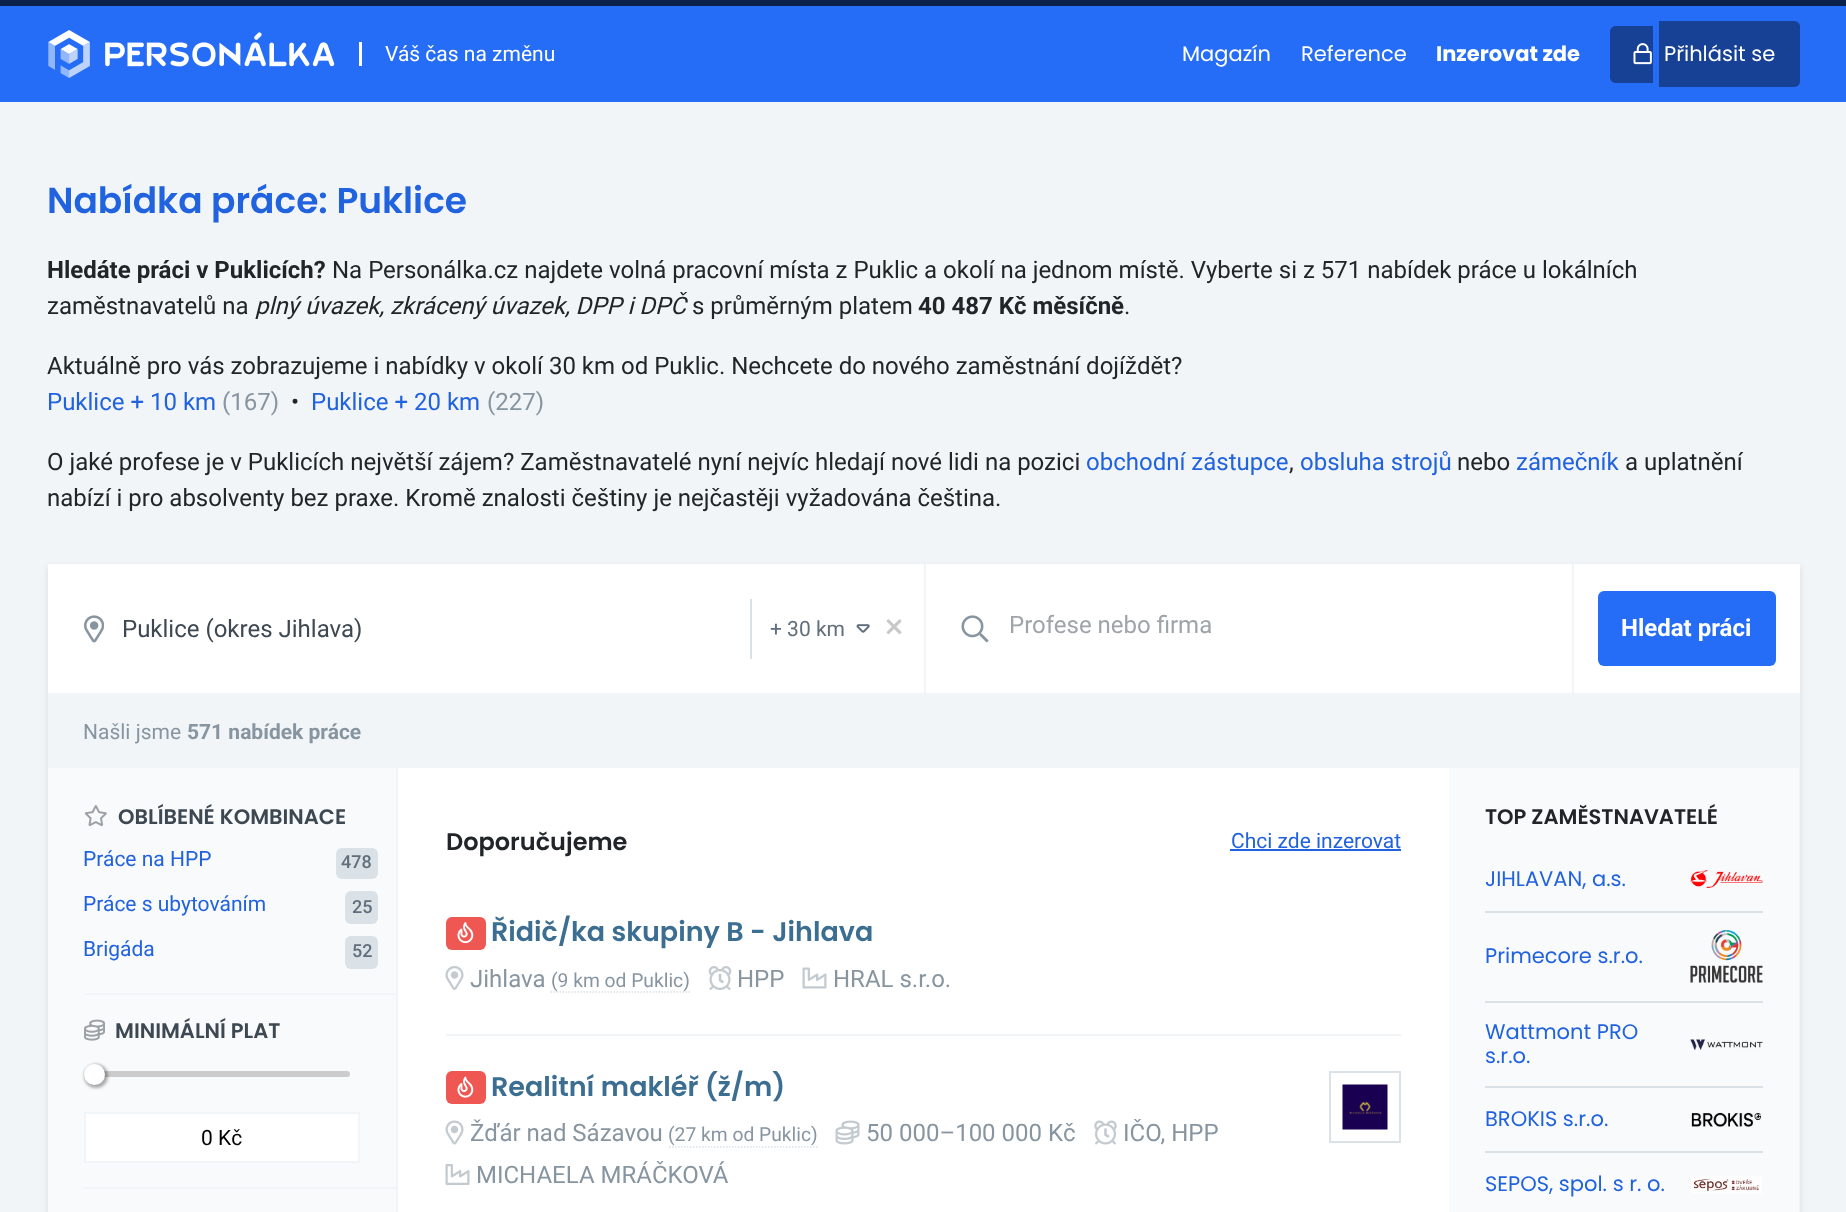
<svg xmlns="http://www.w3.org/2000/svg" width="1846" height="1212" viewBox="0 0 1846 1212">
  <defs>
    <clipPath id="clip1"><path d="M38 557H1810V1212H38ZM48 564H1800V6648H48Z" clip-rule="evenodd"/></clipPath>
  </defs>
  <rect width="100%" height="100%" fill="rgb(241,245,248)"/>
  <rect x="0" y="6" width="1846" height="96" fill="rgb(37,109,247)"/>
  <rect x="0" y="0" width="1846" height="6" fill="rgb(11,33,74)"/>
  <image x="48" y="30" width="287" height="48" href="pic1.png"/>
  <rect x="359" y="42" width="3" height="24" fill="rgb(255,255,255)"/>
  <text x="385" y="61" font-family="Roboto" font-size="21" fill="rgb(255,255,255)">Váš čas na změnu</text>
  <g font-family="Poppins" font-size="21" fill="rgb(255,255,255)">
    <text x="1182" y="61">Magazín</text>
    <text x="1301" y="61">Reference</text>
  </g>
  <text x="1436" y="61" font-family="Poppins" font-size="21" font-weight="bold" fill="rgb(255,255,255)">Inzerovat zde</text>
  <path d="M1616 26H1653V83H1616C1612.5 83 1610 80.5 1610 77V32C1610 28.5 1612.5 26 1616 26Z" fill="rgb(22,65,148)"/>
  <rect x="1659" y="21" width="5" height="66" fill="rgb(22,65,148)"/>
  <path d="M1664 21H1794C1797.5 21 1800 23.5 1800 27V81C1800 84.5 1797.5 87 1794 87H1664Z" fill="rgb(22,65,148)"/>
  <image x="1633" y="43" width="19" height="22" href="pic2.png"/>
  <text x="1664" y="61" font-family="Poppins" font-size="21" fill="rgb(255,255,255)">Přihlásit se</text>
  <text x="47" y="213" font-family="Poppins" font-size="36" font-weight="600" fill="rgb(33,98,222)">Nabídka práce: Puklice</text>
  <text x="47" y="278" font-family="Roboto" font-size="24" font-weight="bold" fill="rgb(33,37,41)">Hledáte práci v Puklicích?</text>
  <g font-family="Roboto" font-size="24" fill="rgb(33,37,41)">
    <text x="332" y="278">Na Personálka.cz najdete volná pracovní místa z Puklic a okolí na jednom místě. Vyberte si z 571 nabídek práce u lokálních</text>
    <text x="47" y="314">zaměstnavatelů na</text>
  </g>
  <text x="255" y="314" font-family="Roboto" font-size="24" font-style="italic" fill="rgb(33,37,41)">plný úvazek, zkrácený úvazek, DPP i DPČ</text>
  <text x="692" y="314" font-family="Roboto" font-size="24" fill="rgb(33,37,41)">s průměrným platem</text>
  <text x="918" y="314" font-family="Roboto" font-size="24" font-weight="bold" fill="rgb(33,37,41)">40 487 Kč měsíčně</text>
  <g font-family="Roboto" font-size="24" fill="rgb(33,37,41)">
    <text x="1124" y="314">.</text>
    <text x="47" y="374">Aktuálně pro vás zobrazujeme i nabídky v okolí 30 km od Puklic. Nechcete do nového zaměstnání dojíždět?</text>
  </g>
  <text x="47" y="410" font-family="Roboto" font-size="24" fill="rgb(33,98,222)">Puklice + 10 km</text>
  <text x="222" y="410" font-family="Roboto" font-size="24" fill="rgb(135,149,161)">(167)</text>
  <text x="291" y="410" font-family="Roboto" font-size="24" fill="rgb(33,37,41)">•</text>
  <text x="311" y="410" font-family="Roboto" font-size="24" fill="rgb(33,98,222)">Puklice + 20 km</text>
  <text x="487" y="410" font-family="Roboto" font-size="24" fill="rgb(135,149,161)">(227)</text>
  <text x="47" y="470" font-family="Roboto" font-size="24" fill="rgb(33,37,41)">O jaké profese je v Puklicích největší zájem? Zaměstnavatelé nyní nejvíc hledají nové lidi na pozici</text>
  <text x="1086" y="470" font-family="Roboto" font-size="24" fill="rgb(33,98,222)">obchodní zástupce</text>
  <text x="1289" y="470" font-family="Roboto" font-size="24" fill="rgb(33,37,41)">,</text>
  <text x="1300" y="470" font-family="Roboto" font-size="24" fill="rgb(33,98,222)">obsluha strojů</text>
  <text x="1457" y="470" font-family="Roboto" font-size="24" fill="rgb(33,37,41)">nebo</text>
  <text x="1516" y="470" font-family="Roboto" font-size="24" fill="rgb(33,98,222)">zámečník</text>
  <g font-family="Roboto" font-size="24" fill="rgb(33,37,41)">
    <text x="1625" y="470">a uplatnění</text>
    <text x="47" y="506">nabízí i pro absolventy bez praxe. Kromě znalosti češtiny je nejčastěji vyžadována čeština.</text>
  </g>
  <g clip-path="url(#clip1)">
    <rect x="48" y="567" width="1752" height="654" fill="rgba(0,0,0,0.1)" filter="blur(3px)"/>
  </g>
  <rect x="48" y="564" width="1752" height="129" fill="rgb(255,255,255)"/>
  <image x="84" y="615" width="20" height="28" href="pic3.png"/>
  <text x="122" y="637" font-family="Roboto" font-size="24" fill="rgb(61,72,82)">Puklice (okres Jihlava)</text>
  <rect x="750" y="599" width="2" height="60" fill="rgb(218,225,231)"/>
  <text x="770" y="636" font-family="Roboto" font-size="21" fill="rgb(96,111,123)">+ 30 km</text>
  <image x="856" y="624" width="14" height="9" href="pic4.png"/>
  <image x="886" y="619" width="16" height="16" href="pic5.png"/>
  <rect x="1572" y="564" width="2" height="129" fill="rgb(241,245,248)"/>
  <rect x="924" y="564" width="2" height="129" fill="rgb(241,245,248)"/>
  <image x="961" y="615" width="28" height="28" href="pic6.png"/>
  <text x="1009" y="633" font-family="Roboto" font-size="24" fill="rgb(158,164,169)">Profese nebo firma</text>
  <rect x="1598" y="591" width="178" height="75" rx="6" fill="rgb(37,109,247)"/>
  <text x="1621" y="636" font-family="Roboto" font-size="24" font-weight="bold" fill="rgb(255,255,255)">Hledat práci</text>
  <text x="83" y="739" font-family="Roboto" font-size="21" fill="rgb(135,149,161)">Našli jsme</text>
  <text x="187" y="739" font-family="Roboto" font-size="21" font-weight="bold" fill="rgb(135,149,161)">571 nabídek práce</text>
  <rect x="48" y="768" width="348" height="444" fill="rgb(248,250,252)"/>
  <rect x="84" y="993" width="312" height="2" fill="rgb(241,245,248)"/>
  <image x="84" y="805" width="23" height="22" href="pic7.png"/>
  <text x="118" y="824" font-family="Poppins" font-size="21" font-weight="600" fill="rgb(61,72,82)">OBLÍBENÉ KOMBINACE</text>
  <text x="83" y="866" font-family="Roboto" font-size="21" fill="rgb(33,98,222)">Práce na HPP</text>
  <rect x="336" y="848" width="42" height="31" rx="6" fill="rgb(218,225,231)"/>
  <text x="341" y="868" font-family="Roboto" font-size="18" font-weight="500" fill="rgb(96,111,123)">478</text>
  <text x="83" y="911" font-family="Roboto" font-size="21" fill="rgb(33,98,222)">Práce s ubytováním</text>
  <rect x="345" y="891" width="33" height="33" rx="6" fill="rgb(218,225,231)"/>
  <text x="352" y="913" font-family="Roboto" font-size="18" font-weight="500" fill="rgb(96,111,123)">25</text>
  <text x="83" y="956" font-family="Roboto" font-size="21" fill="rgb(33,98,222)">Brigáda</text>
  <rect x="345" y="936" width="33" height="33" rx="6" fill="rgb(218,225,231)"/>
  <text x="352" y="957" font-family="Roboto" font-size="18" font-weight="500" fill="rgb(96,111,123)">52</text>
  <rect x="84" y="1187" width="312" height="2" fill="rgb(241,245,248)"/>
  <image x="84" y="1019" width="21" height="22" href="pic8.png"/>
  <text x="115" y="1038" font-family="Poppins" font-size="21" font-weight="600" fill="rgb(61,72,82)">MINIMÁLNÍ PLAT</text>
  <rect x="95" y="1071" width="255" height="6" rx="3" fill="rgb(204,204,204)"/>
  <rect x="84" y="1064" width="24" height="24" rx="12" fill="rgba(0,0,0,0.32)" filter="blur(1.5px)"/>
  <circle cx="94.5" cy="1074.5" r="10.5" fill="rgb(255,255,255)"/>
  <rect x="85" y="1113" width="274" height="49" fill="rgb(255,255,255)" stroke="rgb(241,245,248)" stroke-width="2"/>
  <text x="201" y="1145" font-family="Roboto" font-size="21" fill="rgb(0,0,0)">0 Kč</text>
  <rect x="398" y="768" width="1051" height="444" fill="rgb(255,255,255)"/>
  <text x="446" y="850" font-family="Poppins" font-size="24" font-weight="600" fill="rgb(33,37,41)">Doporučujeme</text>
  <text x="1231" y="848" font-family="Roboto" font-size="21" fill="rgb(33,98,222)">Chci zde inzerovat</text>
  <rect x="1230" y="849" width="171" height="2" fill="rgb(33,98,222)"/>
  <rect x="446" y="1034" width="955" height="2" fill="rgb(241,245,248)"/>
  <rect x="446" y="917" width="40" height="33" rx="6" fill="rgb(239,87,83)"/>
  <image x="457" y="922" width="17" height="22" href="pic9.png"/>
  <text x="491" y="941" font-family="Poppins" font-size="27" font-weight="600" fill="rgb(59,110,145)">Řidič/ka skupiny B - Jihlava</text>
  <image x="445" y="966" width="19" height="24" href="pic10.png"/>
  <text x="470" y="987" font-family="Roboto" font-size="24" fill="rgb(135,149,161)">Jihlava</text>
  <path d="M550.5 992H690" fill="none" stroke="rgb(218,225,231)" stroke-width="1.5" stroke-dasharray="1.5 1.5"/>
  <text x="551" y="987" font-family="Roboto" font-size="19.25" fill="rgb(135,149,161)">(9 km od Puklic)</text>
  <image x="708" y="966" width="24" height="24" href="pic11.png"/>
  <text x="737" y="987" font-family="Roboto" font-size="24" fill="rgb(135,149,161)">HPP</text>
  <image x="802" y="967" width="25" height="22" href="pic12.png"/>
  <text x="833" y="987" font-family="Roboto" font-size="24" fill="rgb(135,149,161)">HRAL s.r.o.</text>
  <rect x="446" y="1071" width="40" height="33" rx="6" fill="rgb(239,87,83)"/>
  <image x="457" y="1076" width="17" height="22" href="pic13.png"/>
  <text x="491" y="1096" font-family="Poppins" font-size="27" font-weight="600" fill="rgb(59,110,145)">Realitní makléř (ž/m)</text>
  <image x="445" y="1120" width="19" height="25" href="pic14.png"/>
  <text x="470" y="1141" font-family="Roboto" font-size="24" fill="rgb(135,149,161)">Žďár nad Sázavou</text>
  <text x="668" y="1141" font-family="Roboto" font-size="19.25" fill="rgb(135,149,161)">(27 km od Puklic)</text>
  <path d="M669 1147H817.5" fill="none" stroke="rgb(218,225,231)" stroke-width="1.5" stroke-dasharray="1.5 1.5"/>
  <image x="835" y="1120" width="25" height="25" href="pic15.png"/>
  <text x="866" y="1141" font-family="Roboto" font-size="24" fill="rgb(135,149,161)">50 000–100 000 Kč</text>
  <image x="1094" y="1120" width="23" height="25" href="pic16.png"/>
  <text x="1123" y="1141" font-family="Roboto" font-size="24" fill="rgb(135,149,161)">IČO, HPP</text>
  <image x="445" y="1164" width="25" height="21" href="pic17.png"/>
  <text x="476" y="1183" font-family="Roboto" font-size="24" fill="rgb(135,149,161)">MICHAELA MRÁČKOVÁ</text>
  <rect x="1330" y="1072" width="70" height="70" fill="none" stroke="rgb(218,225,231)" stroke-width="2"/>
  <image x="1342" y="1084" width="46" height="46" href="pic18.png"/>
  <rect x="1449" y="768" width="350" height="444" fill="rgb(248,250,252)"/>
  <text x="1485" y="824" font-family="Poppins" font-size="21" font-weight="600" fill="rgb(33,37,41)">TOP ZAMĚSTNAVATELÉ</text>
  <rect x="1485" y="911" width="278" height="2" fill="rgb(218,225,231)"/>
  <text x="1485" y="886" font-family="Poppins" font-size="21" fill="rgb(33,98,222)">JIHLAVAN, a.s.</text>
  <image x="1690" y="870" width="73" height="18" href="pic19.png"/>
  <rect x="1485" y="1001" width="278" height="2" fill="rgb(218,225,231)"/>
  <text x="1485" y="963" font-family="Poppins" font-size="21" fill="rgb(33,98,222)">Primecore s.r.o.</text>
  <image x="1690" y="930" width="73" height="53" href="pic20.png"/>
  <rect x="1485" y="1086" width="278" height="2" fill="rgb(218,225,231)"/>
  <g font-family="Poppins" font-size="21" fill="rgb(33,98,222)">
    <text>
      <tspan x="1485" y="1039">Wattmont PRO</tspan>
      <tspan x="1485" y="1063">s.r.o.</tspan>
    </text>
  </g>
  <image x="1690" y="1039" width="73" height="11" href="pic21.png"/>
  <rect x="1485" y="1151" width="278" height="2" fill="rgb(218,225,231)"/>
  <text x="1485" y="1126" font-family="Poppins" font-size="21" fill="rgb(33,98,222)">BROKIS s.r.o.</text>
  <image x="1691" y="1112" width="71" height="15" href="pic22.png"/>
  <text x="1485" y="1191" font-family="Poppins" font-size="21" fill="rgb(33,98,222)">SEPOS, spol. s r. o.</text>
  <image x="1691" y="1176" width="71" height="18" href="pic23.png"/>
</svg>
